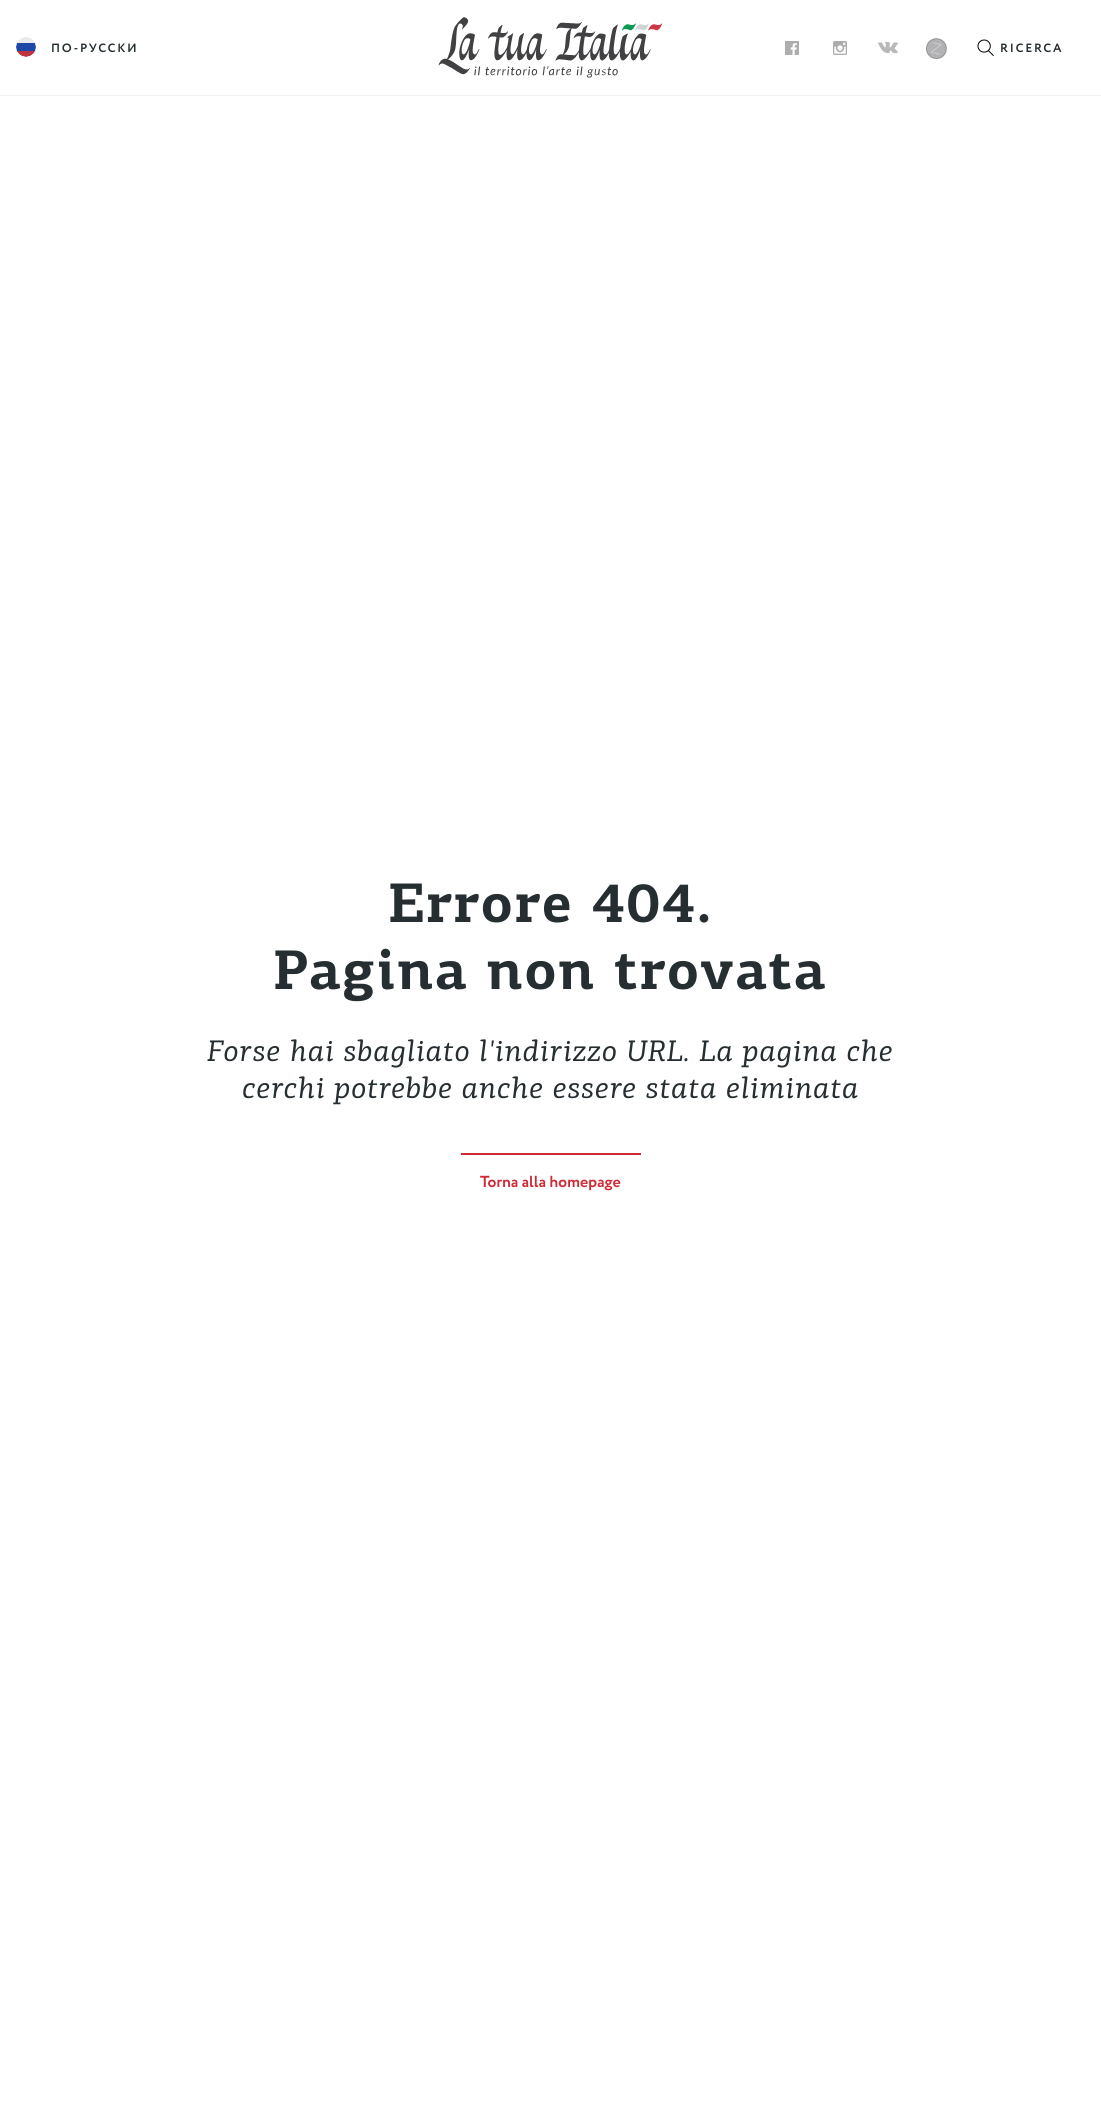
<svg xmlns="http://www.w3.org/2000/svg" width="1101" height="2118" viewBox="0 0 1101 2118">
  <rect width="100%" height="100%" fill="rgb(255,255,255)"/>
  <image x="438" y="17" width="225" height="61" href="pic1.png"/>
  <image x="16" y="37" width="20" height="20" href="pic2.png"/>
  <image x="52" y="43" width="84" height="10" href="pic3.png"/>
  <image x="785" y="41" width="14" height="14" href="pic4.png"/>
  <image x="833" y="41" width="14" height="14" href="pic5.png"/>
  <image x="878" y="42" width="20" height="12" href="pic6.png"/>
  <image x="926" y="38" width="21" height="22" href="pic7.png"/>
  <image x="977" y="39" width="17" height="17" href="pic8.png"/>
  <image x="1001" y="43" width="61" height="10" href="pic9.png"/>
  <rect x="0" y="95" width="1101" height="1" fill="rgb(239,240,243)"/>
  <image x="390" y="883" width="319" height="40" href="pic10.png"/>
  <image x="275" y="948" width="550" height="54" href="pic11.png"/>
  <image x="207" y="1039" width="685" height="29" href="pic12.png"/>
  <image x="243" y="1076" width="615" height="29" href="pic13.png"/>
  <rect x="461" y="1153" width="180" height="2" fill="rgb(206,43,55)"/>
  <image x="480" y="1175" width="141" height="16" href="pic14.png"/>
</svg>
